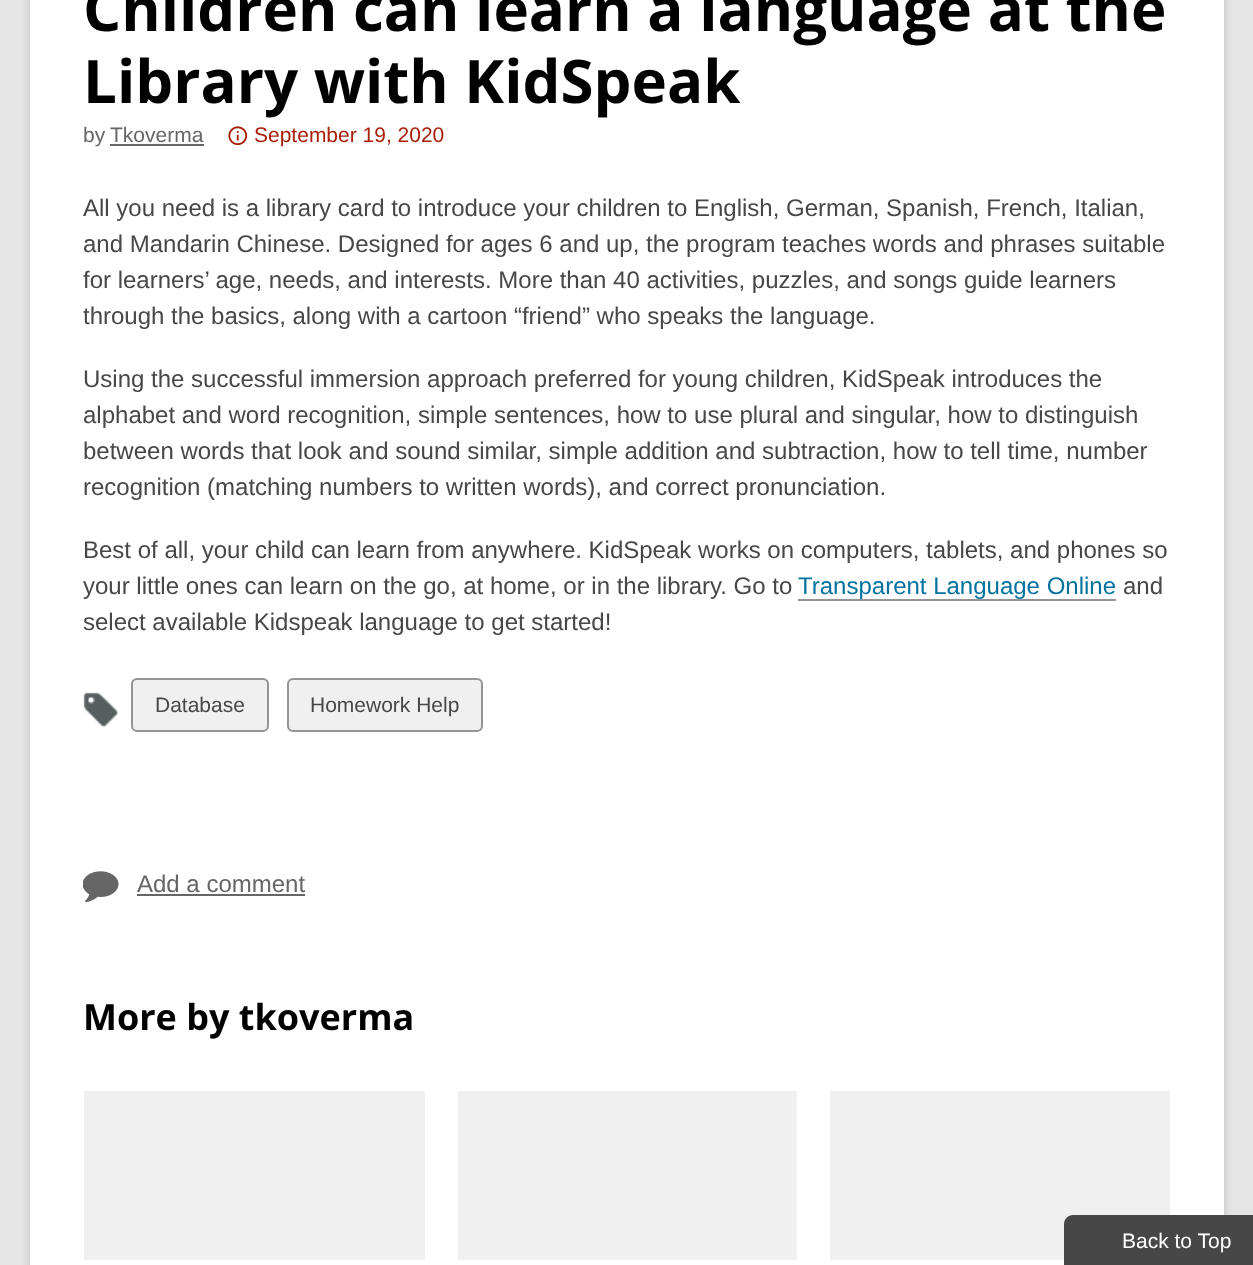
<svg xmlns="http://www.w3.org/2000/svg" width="1253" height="1265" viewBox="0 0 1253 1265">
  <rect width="100%" height="100%" fill="rgb(229,229,229)"/>
  <rect x="30" y="-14" width="1194" height="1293" fill="rgba(0,0,0,0.16)" filter="blur(4.5px)"/>
  <rect x="30" y="0" width="1194" height="1265" fill="rgb(255,255,255)"/>
  <g font-family="Open Sans" font-size="60" font-weight="bold" fill="rgb(0,0,0)">
    <text>
      <tspan x="83" y="31">Children can learn a language at the</tspan>
      <tspan x="83" y="103">Library with KidSpeak</tspan>
    </text>
  </g>
  <g font-family="Liberation Sans" font-size="21" fill="rgb(102,102,102)">
    <text x="83" y="142">by</text>
    <text x="110" y="142">Tkoverma</text>
  </g>
  <rect x="110" y="144" width="94" height="2" fill="rgb(102,102,102)"/>
  <image x="228" y="126" width="20" height="20" href="pic1.png"/>
  <text x="254" y="142" font-family="Liberation Sans" font-size="21" fill="rgb(168,32,9)">September 19, 2020</text>
  <g font-family="Liberation Sans" font-size="24" fill="rgb(71,71,71)">
    <text>
      <tspan x="83" y="216">All you need is a library card to introduce your children to English, German, Spanish, French, Italian,</tspan>
      <tspan x="83" y="252">and Mandarin Chinese. Designed for ages 6 and up, the program teaches words and phrases suitable</tspan>
      <tspan x="83" y="288">for learners’ age, needs, and interests. More than 40 activities, puzzles, and songs guide learners</tspan>
      <tspan x="83" y="324">through the basics, along with a cartoon “friend” who speaks the language.</tspan>
    </text>
    <text>
      <tspan x="83" y="387">Using the successful immersion approach preferred for young children, KidSpeak introduces the</tspan>
      <tspan x="83" y="423">alphabet and word recognition, simple sentences, how to use plural and singular, how to distinguish</tspan>
      <tspan x="83" y="459">between words that look and sound similar, simple addition and subtraction, how to tell time, number</tspan>
      <tspan x="83" y="495">recognition (matching numbers to written words), and correct pronunciation.</tspan>
    </text>
    <text>
      <tspan x="83" y="558">Best of all, your child can learn from anywhere. KidSpeak works on computers, tablets, and phones so</tspan>
      <tspan x="83" y="594">your little ones can learn on the go, at home, or in the library. Go to</tspan>
    </text>
  </g>
  <text x="798" y="594" font-family="Liberation Sans" font-size="24" fill="rgb(2,114,158)">Transparent Language Online</text>
  <rect x="798" y="599" width="318" height="2" fill="rgb(148,148,148)"/>
  <g font-family="Liberation Sans" font-size="24" fill="rgb(71,71,71)">
    <text x="1123" y="594">and</text>
    <text x="83" y="630">select available Kidspeak language to get started!</text>
  </g>
  <image x="83" y="692" width="36" height="36" href="pic2.png"/>
  <rect x="132" y="679" width="136" height="52" rx="5" fill="rgb(240,240,240)" stroke="rgb(148,148,148)" stroke-width="2"/>
  <text x="155" y="712" font-family="Liberation Sans" font-size="21" fill="rgb(71,71,71)">Database</text>
  <rect x="288" y="679" width="194" height="52" rx="5" fill="rgb(240,240,240)" stroke="rgb(148,148,148)" stroke-width="2"/>
  <text x="310" y="712" font-family="Liberation Sans" font-size="21" fill="rgb(71,71,71)">Homework Help</text>
  <image x="83" y="871" width="36" height="32" href="pic3.png"/>
  <text x="137" y="892" font-family="Liberation Sans" font-size="24" fill="rgb(102,102,102)">Add a comment</text>
  <rect x="137" y="894" width="168" height="2" fill="rgb(102,102,102)"/>
  <text x="83" y="1030" font-family="Open Sans" font-size="36" font-weight="bold" fill="rgb(0,0,0)">More by tkoverma</text>
  <rect x="84" y="1091" width="341" height="169" fill="rgb(240,240,240)"/>
  <rect x="458" y="1091" width="339" height="169" fill="rgb(240,240,240)"/>
  <rect x="830" y="1091" width="340" height="169" fill="rgb(240,240,240)"/>
  <path d="M1073 1215H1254V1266H1064V1224C1064 1219 1068 1215 1073 1215Z" fill="rgb(71,71,71)"/>
  <text x="1122" y="1248" font-family="Liberation Sans" font-size="21" fill="rgb(255,255,255)">Back to Top</text>
</svg>
